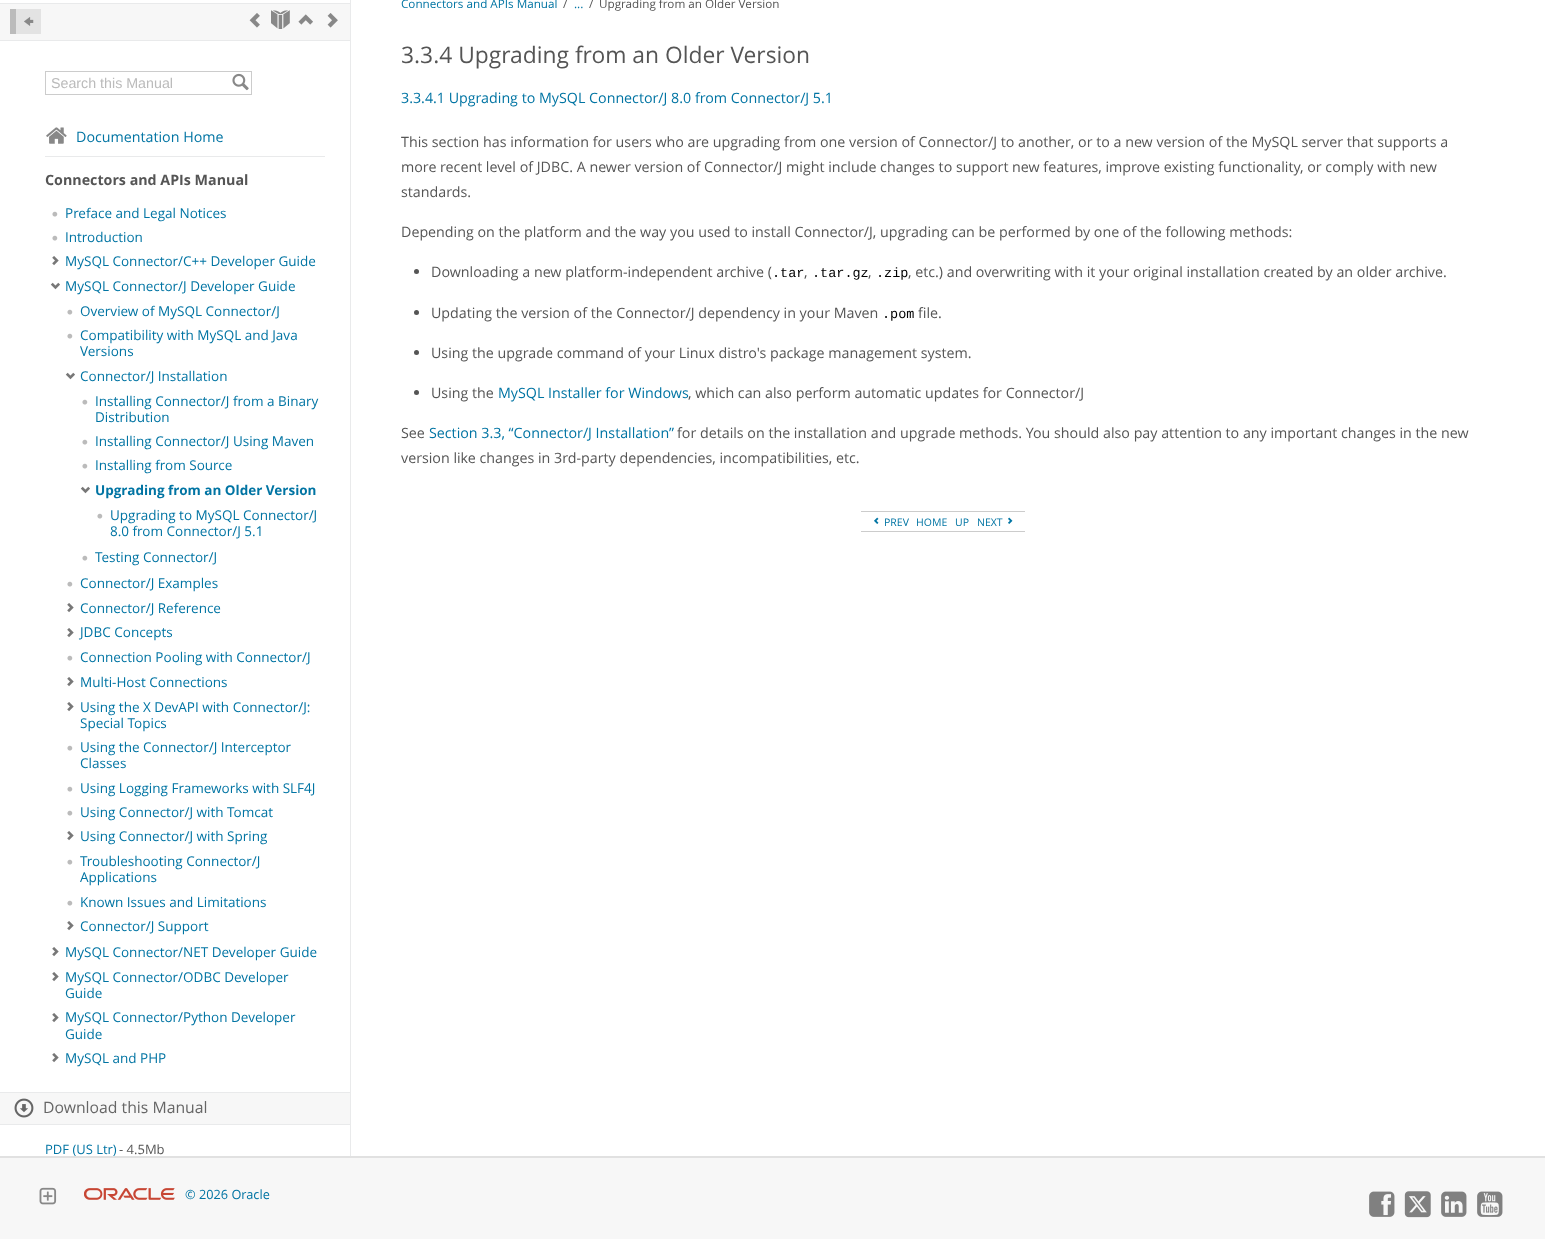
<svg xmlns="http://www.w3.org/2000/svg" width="1545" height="1239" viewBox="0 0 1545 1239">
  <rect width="100%" height="100%" fill="rgb(255,255,255)"/>
  <rect x="350" y="0" width="1" height="1156" fill="rgb(233,234,235)"/>
  <rect x="0" y="4" width="350" height="36" fill="rgb(247,247,247)"/>
  <rect x="0" y="3" width="350" height="1" fill="rgb(233,234,235)"/>
  <rect x="0" y="40" width="350" height="1" fill="rgb(233,234,235)"/>
  <rect x="16" y="9" width="25" height="25" fill="rgb(227,227,227)"/>
  <rect x="10" y="9" width="6" height="25" fill="rgb(187,187,187)"/>
  <image x="24" y="17" width="10" height="9" href="pic1.png"/>
  <image x="249" y="13" width="11" height="15" href="pic2.png"/>
  <image x="271" y="10" width="19" height="19" href="pic3.png"/>
  <image x="298" y="14" width="15" height="11" href="pic4.png"/>
  <image x="327" y="13" width="11" height="15" href="pic5.png"/>
  <rect x="45.5" y="71.5" width="206" height="23" fill="none" stroke="rgb(204,204,204)"/>
  <text x="51" y="88" font-family="Liberation Sans" font-size="14.25" fill="rgb(187,187,187)">Search this Manual</text>
  <image x="232" y="73" width="17" height="18" href="pic6.png"/>
  <image x="46" y="127" width="21" height="17" href="pic7.png"/>
  <text x="76" y="142" font-family="Open Sans" font-size="14.25" fill="rgb(0,116,163)">Documentation Home</text>
  <rect x="45" y="156" width="280" height="1" fill="rgb(233,234,235)"/>
  <text x="45" y="185" font-family="Open Sans" font-size="14.25" font-weight="bold" fill="rgb(85,85,85)">Connectors and APIs Manual</text>
  <image x="52" y="211" width="6" height="6" href="pic8.png"/>
  <text x="65" y="218" font-family="Open Sans" font-size="13.5" fill="rgb(0,116,163)">Preface and Legal Notices</text>
  <image x="52" y="235" width="6" height="6" href="pic8.png"/>
  <text x="65" y="242" font-family="Open Sans" font-size="13.5" fill="rgb(0,116,163)">Introduction</text>
  <image x="52" y="256" width="7" height="10" href="pic9.png"/>
  <text x="65" y="266" font-family="Open Sans" font-size="13.5" fill="rgb(0,116,163)">MySQL Connector/C++ Developer Guide</text>
  <image x="50" y="282" width="10" height="8" href="pic10.png"/>
  <text x="65" y="291" font-family="Open Sans" font-size="13.5" fill="rgb(0,116,163)">MySQL Connector/J Developer Guide</text>
  <image x="67" y="309" width="6" height="6" href="pic8.png"/>
  <text x="80" y="316" font-family="Open Sans" font-size="13.5" fill="rgb(0,116,163)">Overview of MySQL Connector/J</text>
  <image x="67" y="333" width="6" height="6" href="pic8.png"/>
  <g font-family="Open Sans" font-size="13.5" fill="rgb(0,116,163)">
    <text>
      <tspan x="80" y="340">Compatibility with MySQL and Java</tspan>
      <tspan x="80" y="356">Versions</tspan>
    </text>
  </g>
  <image x="65" y="372" width="10" height="8" href="pic10.png"/>
  <text x="80" y="381" font-family="Open Sans" font-size="13.5" fill="rgb(0,116,163)">Connector/J Installation</text>
  <image x="82" y="399" width="6" height="6" href="pic8.png"/>
  <g font-family="Open Sans" font-size="13.5" fill="rgb(0,116,163)">
    <text>
      <tspan x="95" y="406">Installing Connector/J from a Binary</tspan>
      <tspan x="95" y="422">Distribution</tspan>
    </text>
  </g>
  <image x="82" y="439" width="6" height="6" href="pic8.png"/>
  <text x="95" y="446" font-family="Open Sans" font-size="13.5" fill="rgb(0,116,163)">Installing Connector/J Using Maven</text>
  <image x="82" y="463" width="6" height="6" href="pic8.png"/>
  <text x="95" y="470" font-family="Open Sans" font-size="13.5" fill="rgb(0,116,163)">Installing from Source</text>
  <image x="80" y="486" width="10" height="8" href="pic10.png"/>
  <text x="95" y="495" font-family="Open Sans" font-size="13.5" font-weight="bold" fill="rgb(0,116,163)">Upgrading from an Older Version</text>
  <image x="97" y="513" width="6" height="6" href="pic8.png"/>
  <g font-family="Open Sans" font-size="13.5" fill="rgb(0,116,163)">
    <text>
      <tspan x="110" y="520">Upgrading to MySQL Connector/J</tspan>
      <tspan x="110" y="536">8.0 from Connector/J 5.1</tspan>
    </text>
  </g>
  <image x="82" y="555" width="6" height="6" href="pic8.png"/>
  <text x="95" y="562" font-family="Open Sans" font-size="13.5" fill="rgb(0,116,163)">Testing Connector/J</text>
  <image x="67" y="581" width="6" height="6" href="pic8.png"/>
  <text x="80" y="588" font-family="Open Sans" font-size="13.5" fill="rgb(0,116,163)">Connector/J Examples</text>
  <image x="67" y="603" width="7" height="10" href="pic9.png"/>
  <text x="80" y="613" font-family="Open Sans" font-size="13.5" fill="rgb(0,116,163)">Connector/J Reference</text>
  <image x="67" y="628" width="7" height="10" href="pic9.png"/>
  <text x="80" y="637" font-family="Open Sans" font-size="13.5" fill="rgb(0,116,163)">JDBC Concepts</text>
  <image x="67" y="655" width="6" height="6" href="pic8.png"/>
  <text x="80" y="662" font-family="Open Sans" font-size="13.5" fill="rgb(0,116,163)">Connection Pooling with Connector/J</text>
  <image x="67" y="677" width="7" height="10" href="pic9.png"/>
  <text x="80" y="687" font-family="Open Sans" font-size="13.5" fill="rgb(0,116,163)">Multi-Host Connections</text>
  <image x="67" y="702" width="7" height="10" href="pic9.png"/>
  <g font-family="Open Sans" font-size="13.5" fill="rgb(0,116,163)">
    <text>
      <tspan x="80" y="712">Using the X DevAPI with Connector/J:</tspan>
      <tspan x="80" y="728">Special Topics</tspan>
    </text>
  </g>
  <image x="67" y="745" width="6" height="6" href="pic8.png"/>
  <g font-family="Open Sans" font-size="13.5" fill="rgb(0,116,163)">
    <text>
      <tspan x="80" y="752">Using the Connector/J Interceptor</tspan>
      <tspan x="80" y="768">Classes</tspan>
    </text>
  </g>
  <image x="67" y="786" width="6" height="6" href="pic8.png"/>
  <text x="80" y="793" font-family="Open Sans" font-size="13.5" fill="rgb(0,116,163)">Using Logging Frameworks with SLF4J</text>
  <image x="67" y="810" width="6" height="6" href="pic8.png"/>
  <text x="80" y="817" font-family="Open Sans" font-size="13.5" fill="rgb(0,116,163)">Using Connector/J with Tomcat</text>
  <image x="67" y="831" width="7" height="10" href="pic9.png"/>
  <text x="80" y="841" font-family="Open Sans" font-size="13.5" fill="rgb(0,116,163)">Using Connector/J with Spring</text>
  <image x="67" y="859" width="6" height="6" href="pic8.png"/>
  <g font-family="Open Sans" font-size="13.5" fill="rgb(0,116,163)">
    <text>
      <tspan x="80" y="866">Troubleshooting Connector/J</tspan>
      <tspan x="80" y="882">Applications</tspan>
    </text>
  </g>
  <image x="67" y="900" width="6" height="6" href="pic8.png"/>
  <text x="80" y="907" font-family="Open Sans" font-size="13.5" fill="rgb(0,116,163)">Known Issues and Limitations</text>
  <image x="67" y="921" width="7" height="10" href="pic9.png"/>
  <text x="80" y="931" font-family="Open Sans" font-size="13.5" fill="rgb(0,116,163)">Connector/J Support</text>
  <image x="52" y="947" width="7" height="10" href="pic9.png"/>
  <text x="65" y="957" font-family="Open Sans" font-size="13.5" fill="rgb(0,116,163)">MySQL Connector/NET Developer Guide</text>
  <image x="52" y="972" width="7" height="10" href="pic9.png"/>
  <g font-family="Open Sans" font-size="13.5" fill="rgb(0,116,163)">
    <text>
      <tspan x="65" y="982">MySQL Connector/ODBC Developer</tspan>
      <tspan x="65" y="998">Guide</tspan>
    </text>
  </g>
  <image x="52" y="1013" width="7" height="10" href="pic9.png"/>
  <g font-family="Open Sans" font-size="13.5" fill="rgb(0,116,163)">
    <text>
      <tspan x="65" y="1022">MySQL Connector/Python Developer</tspan>
      <tspan x="65" y="1039">Guide</tspan>
    </text>
  </g>
  <image x="52" y="1053" width="7" height="10" href="pic9.png"/>
  <text x="65" y="1063" font-family="Open Sans" font-size="13.5" fill="rgb(0,116,163)">MySQL and PHP</text>
  <rect x="0" y="1093" width="350" height="31" fill="rgb(247,247,247)"/>
  <rect x="0" y="1092" width="350" height="1" fill="rgb(233,234,235)"/>
  <rect x="0" y="1124" width="350" height="1" fill="rgb(233,234,235)"/>
  <image x="14" y="1098" width="20" height="20" href="pic11.png"/>
  <text x="43" y="1113" font-family="Open Sans" font-size="15.75" fill="rgb(102,102,102)">Download this Manual</text>
  <text x="45" y="1154" font-family="Open Sans" font-size="13" fill="rgb(0,116,163)">PDF (US Ltr)</text>
  <text x="119" y="1154" font-family="Open Sans" font-size="13" fill="rgb(85,85,85)">- 4.5Mb</text>
  <text x="401" y="8" font-family="Open Sans" font-size="11.7" fill="rgb(0,116,163)">Connectors and APIs Manual</text>
  <text x="563" y="8" font-family="Open Sans" font-size="11.7" fill="rgb(85,85,85)">/</text>
  <text x="574" y="8" font-family="Open Sans" font-size="11.7" fill="rgb(0,116,163)">...</text>
  <g font-family="Open Sans" font-size="11.7" fill="rgb(85,85,85)">
    <text x="589" y="8">/</text>
    <text x="599" y="8">Upgrading from an Older Version</text>
  </g>
  <text x="401" y="63" font-family="Open Sans" font-size="22.8" fill="rgb(85,85,85)">3.3.4 Upgrading from an Older Version</text>
  <text x="401" y="103" font-family="Open Sans" font-size="14.25" fill="rgb(0,116,163)">3.3.4.1 Upgrading to MySQL Connector/J 8.0 from Connector/J 5.1</text>
  <g font-family="Open Sans" font-size="14.25" fill="rgb(85,85,85)">
    <text>
      <tspan x="401" y="147">This section has information for users who are upgrading from one version of Connector/J to another, or to a new version of the MySQL server that supports a</tspan>
      <tspan x="401" y="172">more recent level of JDBC. A newer version of Connector/J might include changes to support new features, improve existing functionality, or comply with new</tspan>
      <tspan x="401" y="197">standards.</tspan>
    </text>
    <text x="401" y="237">Depending on the platform and the way you used to install Connector/J, upgrading can be performed by one of the following methods:</text>
  </g>
  <circle cx="416.5" cy="271.5" r="2.5" fill="rgb(85,85,85)"/>
  <text x="431" y="277" font-family="Open Sans" font-size="14.25" fill="rgb(85,85,85)">Downloading a new platform-independent archive (</text>
  <text x="772" y="277" font-family="Liberation Mono" font-size="13.5" fill="rgb(0,0,0)">.tar</text>
  <text x="804" y="277" font-family="Open Sans" font-size="14.25" fill="rgb(85,85,85)">,</text>
  <text x="812" y="277" font-family="Liberation Mono" font-size="13.5" fill="rgb(0,0,0)">.tar.gz</text>
  <text x="868" y="277" font-family="Open Sans" font-size="14.25" fill="rgb(85,85,85)">,</text>
  <text x="876" y="277" font-family="Liberation Mono" font-size="13.5" fill="rgb(0,0,0)">.zip</text>
  <text x="908" y="277" font-family="Open Sans" font-size="14.25" fill="rgb(85,85,85)">, etc.) and overwriting with it your original installation created by an older archive.</text>
  <circle cx="416.5" cy="312.5" r="2.5" fill="rgb(85,85,85)"/>
  <text x="431" y="318" font-family="Open Sans" font-size="14.25" fill="rgb(85,85,85)">Updating the version of the Connector/J dependency in your Maven</text>
  <text x="882" y="318" font-family="Liberation Mono" font-size="13.5" fill="rgb(0,0,0)">.pom</text>
  <text x="918" y="318" font-family="Open Sans" font-size="14.25" fill="rgb(85,85,85)">file.</text>
  <circle cx="416.5" cy="352.5" r="2.5" fill="rgb(85,85,85)"/>
  <text x="431" y="358" font-family="Open Sans" font-size="14.25" fill="rgb(85,85,85)">Using the upgrade command of your Linux distro's package management system.</text>
  <circle cx="416.5" cy="392.5" r="2.5" fill="rgb(85,85,85)"/>
  <text x="431" y="398" font-family="Open Sans" font-size="14.25" fill="rgb(85,85,85)">Using the</text>
  <text x="498" y="398" font-family="Open Sans" font-size="14.25" fill="rgb(0,116,163)">MySQL Installer for Windows</text>
  <g font-family="Open Sans" font-size="14.25" fill="rgb(85,85,85)">
    <text x="688" y="398">, which can also perform automatic updates for Connector/J</text>
    <text x="401" y="438">See</text>
  </g>
  <text x="429" y="438" font-family="Open Sans" font-size="14.25" fill="rgb(0,116,163)">Section 3.3, “Connector/J Installation”</text>
  <g font-family="Open Sans" font-size="14.25" fill="rgb(85,85,85)">
    <text x="677" y="438">for details on the installation and upgrade methods. You should also pay attention to any important changes in the new</text>
    <text x="401" y="463">version like changes in 3rd-party dependencies, incompatibilities, etc.</text>
  </g>
  <rect x="861" y="511" width="164" height="1" fill="rgb(204,204,204)"/>
  <rect x="861" y="531" width="164" height="1" fill="rgb(204,204,204)"/>
  <image x="874" y="517" width="5" height="7" href="pic12.png"/>
  <g font-family="Open Sans" font-size="10.5" fill="rgb(0,116,163)">
    <text x="884" y="526">PREV</text>
    <text x="916" y="526">HOME</text>
    <text x="955" y="526">UP</text>
    <text x="977" y="526">NEXT</text>
  </g>
  <image x="1008" y="517" width="5" height="7" href="pic13.png"/>
  <rect x="0" y="1158" width="1545" height="81" fill="rgb(247,247,247)"/>
  <rect x="0" y="1156" width="1545" height="2" fill="rgb(225,225,225)"/>
  <image x="39" y="1187" width="18" height="18" href="pic14.png"/>
  <image x="84" y="1188" width="91" height="12" href="pic15.png"/>
  <text x="185" y="1199" font-family="Open Sans" font-size="12.75" fill="rgb(0,116,163)">© 2026 Oracle</text>
  <image x="1369" y="1191" width="26" height="26" href="pic16.png"/>
  <image x="1404" y="1191" width="27" height="27" href="pic17.png"/>
  <image x="1441" y="1191" width="26" height="26" href="pic18.png"/>
  <image x="1477" y="1191" width="26" height="26" href="pic19.png"/>
</svg>
